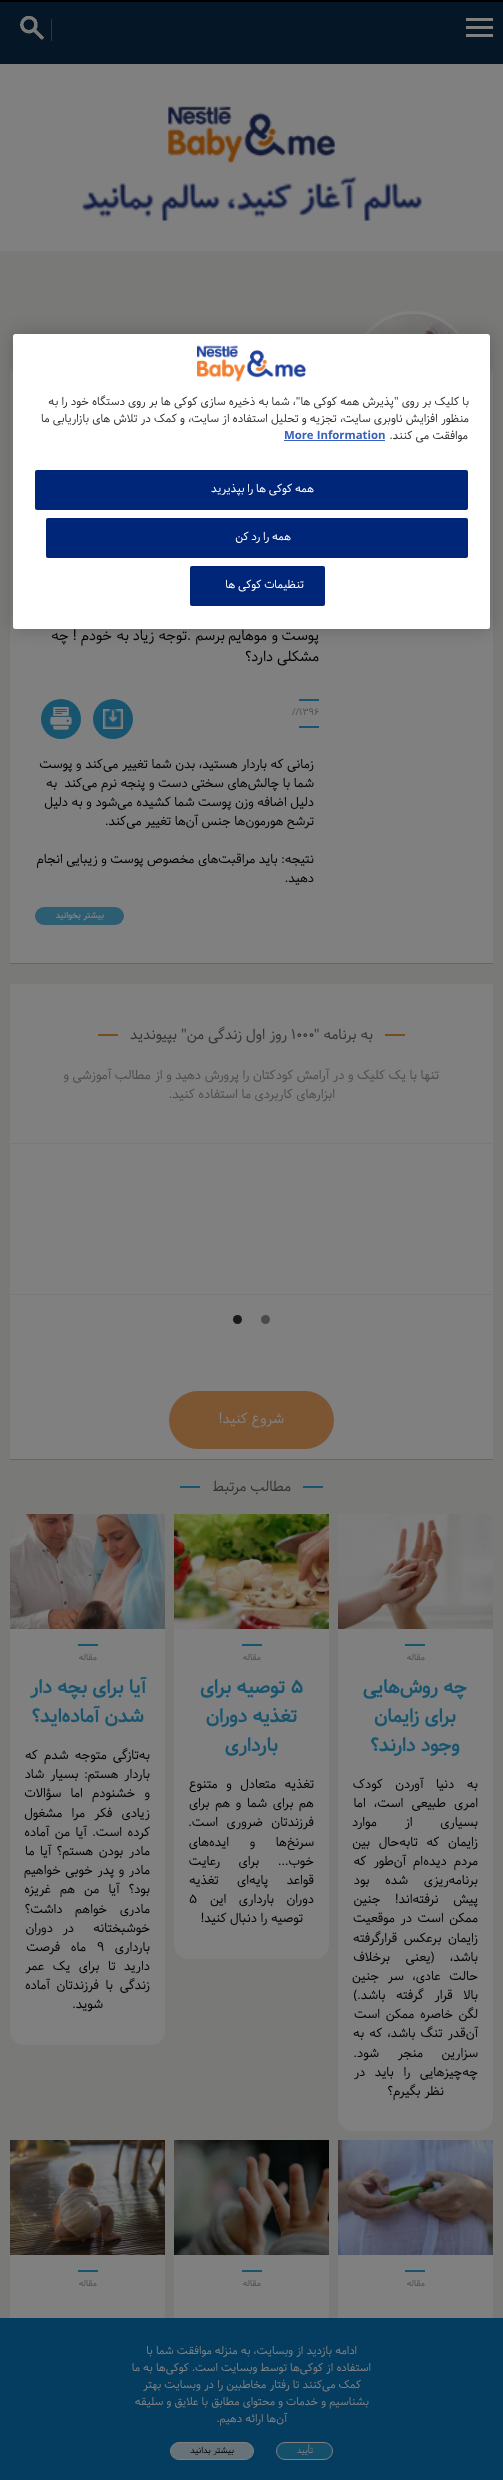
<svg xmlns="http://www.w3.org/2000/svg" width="503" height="2480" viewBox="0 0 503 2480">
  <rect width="100%" height="100%" fill="rgb(128,128,128)"/>
  <rect x="0" y="2" width="503" height="62" fill="rgb(5,23,39)"/>
  <rect x="0" y="0" width="503" height="2" fill="rgb(0,0,0)"/>
  <rect x="466" y="18" width="27" height="3" fill="rgb(128,128,128)"/>
  <rect x="466" y="26" width="27" height="3" fill="rgb(128,128,128)"/>
  <rect x="466" y="34" width="27" height="3" fill="rgb(128,128,128)"/>
  <rect x="51" y="19" width="1" height="22" fill="rgb(42,55,65)"/>
  <image x="20" y="16" width="24" height="24" href="pic1.png"/>
  <image x="168" y="106" width="167" height="57" href="pic2.png"/>
  <image x="82" y="176" width="340" height="45" href="pic3.png"/>
  <rect x="0" y="251" width="503" height="2067" fill="rgb(121,121,119)"/>
  <rect x="10" y="371" width="483" height="592" fill="rgb(128,128,128)"/>
  <circle cx="412.5" cy="371.5" r="59" fill="none" stroke="rgb(128,128,128)" stroke-width="3"/>
  <image x="369" y="314" width="87" height="20" href="pic5.png"/>
  <rect x="13" y="334" width="477" height="295" rx="2.5" fill="rgba(0,0,0,0.2)" filter="blur(9px)"/>
  <rect x="13" y="334" width="477" height="295" rx="2.5" fill="rgb(255,255,255)"/>
  <image x="197" y="345" width="109" height="37" href="pic4.png"/>
  <g font-family="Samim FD" font-size="11.4" direction="rtl" fill="rgb(51,51,51)">
    <text>
      <tspan x="469" y="405">با کلیک بر روی "پذیرش همه کوکی ها"، شما به ذخیره سازی کوکی ها بر روی دستگاه خود را به</tspan>
      <tspan x="469" y="422">منظور افزایش ناوبری سایت، تجزیه و تحلیل استفاده از سایت، و کمک در تلاش های بازاریابی ما</tspan>
    </text>
    <text x="468" y="439">موافقت می کنند.</text>
  </g>
  <text x="284" y="439" font-family="Samim FD" font-size="11.4" font-weight="bold" fill="rgb(56,96,190)">More Information</text>
  <rect x="284" y="440" width="101" height="1" fill="rgb(56,96,190)"/>
  <rect x="35" y="470" width="433" height="40" rx="2" fill="rgb(0,38,121)"/>
  <text x="314" y="492" word-spacing="-0.5" font-family="Samim FD" font-size="11.4" letter-spacing="0.6" direction="rtl" fill="rgb(255,255,255)">همه کوکی ها را بپذیرید</text>
  <rect x="46" y="518" width="422" height="40" rx="2" fill="rgb(0,38,121)"/>
  <text x="291" y="540" word-spacing="-0.5" font-family="Samim FD" font-size="11.4" letter-spacing="0.6" direction="rtl" fill="rgb(255,255,255)">همه را رد کن</text>
  <rect x="190" y="566" width="135" height="40" rx="2" fill="rgb(0,38,121)"/>
  <text x="304" y="588" word-spacing="-0.5" font-family="Samim FD" font-size="11.4" letter-spacing="0.6" direction="rtl" fill="rgb(255,255,255)">تنظیمات کوکی ها</text>
  <rect x="10" y="963" width="483" height="1" fill="rgb(102,102,102)"/>
  <g font-family="Samim FD" font-size="14.4" direction="rtl" fill="rgb(0,0,0)">
    <text x="319" y="640">پوست</text>
    <text x="278" y="640">و</text>
    <text x="267" y="640">موهایم</text>
    <text x="225" y="640">برسم</text>
  </g>
  <text x="187" y="640" font-family="Samim FD" font-size="14.4" fill="rgb(0,0,0)">.</text>
  <g font-family="Samim FD" font-size="14.4" direction="rtl" fill="rgb(0,0,0)">
    <text x="187" y="640">توجه زیاد</text>
    <text x="129" y="640">به</text>
    <text x="112" y="640">خودم ! چه</text>
    <text x="319" y="661">مشکلی</text>
    <text x="273" y="661">دارد؟</text>
  </g>
  <rect x="299" y="699" width="20" height="2" fill="rgb(25,84,110)"/>
  <text x="292" y="715" font-family="Samim FD" font-size="9.5" fill="rgb(77,77,77)">//۱۳۹۶</text>
  <rect x="299" y="726" width="20" height="2" fill="rgb(25,84,110)"/>
  <circle cx="113" cy="719" r="20" fill="rgb(25,84,110)"/>
  <image x="103" y="709" width="20" height="20" href="pic6.png"/>
  <circle cx="61" cy="719" r="20" fill="rgb(25,84,110)"/>
  <image x="50" y="707" width="22" height="23" href="pic7.png"/>
  <g font-family="Samim FD" font-size="12.8" direction="rtl" fill="rgb(0,0,0)">
    <text xml:space="preserve"><tspan x="314" y="768">زمانی که باردار هستید، بدن شما تغییر می‌کند و پوست</tspan><tspan x="314" y="787">شما با چالش‌های سختی دست و پنجه نرم می‌کند  به</tspan><tspan x="314" y="806">دلیل اضافه وزن پوست شما کشیده می‌شود و به دلیل</tspan><tspan x="314" y="825">ترشح هورمون‌ها جنس آن‌ها تغییر می‌کند.</tspan></text>
    <text>
      <tspan x="314" y="863">نتیجه: باید مراقبت‌های مخصوص پوست و زیبایی انجام</tspan>
      <tspan x="314" y="882">دهید.</tspan>
    </text>
  </g>
  <rect x="35" y="907" width="89" height="18" rx="9" fill="rgb(45,93,113)"/>
  <text x="104" y="918" font-family="Samim FD" font-size="8.75" font-weight="bold" direction="rtl" fill="rgb(128,128,128)">بیشتر بخوانید</text>
  <rect x="10" y="984" width="483" height="475" fill="rgb(128,128,128)"/>
  <rect x="10" y="1459" width="483" height="1" fill="rgb(102,102,102)"/>
  <rect x="385" y="1034" width="20" height="2" fill="rgb(123,75,32)"/>
  <text x="373" y="1039" font-family="Samim FD" font-size="14.4" direction="rtl" fill="rgb(51,51,51)">به برنامه "</text>
  <text x="291" y="1039" font-family="Samim FD" font-size="14.4" fill="rgb(51,51,51)">۱۰۰۰</text>
  <text x="287" y="1039" font-family="Samim FD" font-size="14.4" direction="rtl" fill="rgb(51,51,51)">روز اول زندگی من" بپیوندید</text>
  <rect x="98" y="1034" width="20" height="2" fill="rgb(123,75,32)"/>
  <g font-family="Samim FD" font-size="12.8" direction="rtl" fill="rgb(77,77,77)">
    <text x="439" y="1079">تنها با یک کلیک و در آرامش کودکتان را پرورش دهيد و از مطالب آموزشی و</text>
    <text x="335" y="1098">ابزارهای کاربردی ما استفاده کنید.</text>
  </g>
  <rect x="10" y="1143" width="483" height="1" fill="rgb(121,121,119)"/>
  <rect x="10" y="1294" width="483" height="1" fill="rgb(121,121,119)"/>
  <circle cx="265.5" cy="1319.5" r="4.5" fill="rgb(74,74,74)"/>
  <circle cx="237.5" cy="1319.5" r="4.5" fill="rgb(25,25,25)"/>
  <rect x="169" y="1391" width="165" height="58" rx="29" fill="rgb(124,85,51)"/>
  <text x="284" y="1423" font-family="Samim FD" font-size="14.4" direction="rtl" fill="rgb(128,128,128)">شروع کنید!</text>
  <rect x="303" y="1486" width="20" height="2" fill="rgb(25,84,110)"/>
  <text x="291" y="1491" font-family="Samim FD" font-size="14.4" direction="rtl" fill="rgb(51,51,51)">مطالب مرتبط</text>
  <rect x="180" y="1486" width="20" height="2" fill="rgb(25,84,110)"/>
  <path d="M338 1514H493V2117C493 2124.5 486.5 2131 479 2131H352C344.5 2131 338 2124.5 338 2117Z" fill="rgb(128,128,128)"/>
  <image x="338" y="1514" width="155" height="115" href="pic8.png"/>
  <rect x="405" y="1644" width="20" height="2" fill="rgb(25,84,110)"/>
  <text x="425" y="1660" font-family="Samim FD" font-size="8.75" direction="rtl" fill="rgb(77,77,77)">مقاله</text>
  <g font-family="Samim FD" font-size="19.25" font-weight="bold" direction="rtl" fill="rgb(25,84,110)">
    <text x="467" y="1693">چه روش‌هایی</text>
    <text x="456" y="1722">برای زایمان</text>
    <text x="460" y="1751">وجود دارند؟</text>
  </g>
  <g font-family="Samim FD" font-size="12.8" direction="rtl" fill="rgb(0,0,0)">
    <text>
      <tspan x="478" y="1788" word-spacing="9">به دنیا آوردن کودک</tspan>
      <tspan x="478" y="1807" word-spacing="4.5">امری طبیعی است، اما</tspan>
      <tspan x="478" y="1826" word-spacing="24">بسیاری از موارد</tspan>
      <tspan x="478" y="1846" word-spacing="5">زایمان که تا‌به‌حال بین</tspan>
      <tspan x="478" y="1865" word-spacing="3.5">مردم دیده‌ام آن‌طور که</tspan>
      <tspan x="478" y="1884" word-spacing="12">برنامه‌ریزی شده بود</tspan>
      <tspan x="478" y="1903" word-spacing="11">پیش نرفته‌اند! جنین</tspan>
      <tspan x="478" y="1922" word-spacing="2">ممکن است در موقعیت</tspan>
      <tspan x="478" y="1942" word-spacing="3">زایمان برعکس قرار‌گرفته</tspan>
      <tspan x="478" y="1961" word-spacing="12">باشد، (یعنی برخلاف</tspan>
      <tspan x="478" y="1980" word-spacing="5">حالت عادی، سر جنین</tspan>
      <tspan x="478" y="1999" word-spacing="7">بالا قرار گرفته باشد.)</tspan>
      <tspan x="478" y="2018" word-spacing="2">لگن خاصره ممکن است</tspan>
      <tspan x="478" y="2037" word-spacing="1.5">آن‌قدر تنگ باشد، که به</tspan>
      <tspan x="478" y="2057" word-spacing="15">سزارین منجر شود.</tspan>
      <tspan x="478" y="2076" word-spacing="6">چه‌چیزهایی را باید در</tspan>
    </text>
    <text x="444" y="2095">نظر بگیرم؟</text>
  </g>
  <path d="M174 1514H329V1945C329 1952.5 322.5 1959 315 1959H188C180.5 1959 174 1952.5 174 1945Z" fill="rgb(128,128,128)"/>
  <image x="174" y="1514" width="155" height="115" href="pic9.png"/>
  <rect x="242" y="1644" width="20" height="2" fill="rgb(25,84,110)"/>
  <text x="261" y="1660" font-family="Samim FD" font-size="8.75" direction="rtl" fill="rgb(77,77,77)">مقاله</text>
  <text x="291" y="1693" font-family="Samim FD" font-size="19.25" font-weight="bold" fill="rgb(25,84,110)">۵</text>
  <g font-family="Samim FD" font-size="19.25" font-weight="bold" direction="rtl" fill="rgb(25,84,110)">
    <text x="285" y="1693">توصیه برای</text>
    <text x="297" y="1722">تغذیه دوران</text>
    <text x="278" y="1751">بارداری</text>
  </g>
  <g font-family="Samim FD" font-size="12.8" direction="rtl" fill="rgb(0,0,0)">
    <text>
      <tspan x="314" y="1788" word-spacing="5">تغذیه متعادل و متنوع</tspan>
      <tspan x="314" y="1807" word-spacing="2">هم برای شما و هم برای</tspan>
      <tspan x="314" y="1826" word-spacing="5">فرزندتان ضروری است.</tspan>
      <tspan x="314" y="1846" word-spacing="17">سرنخ‌ها و ایده‌های</tspan>
      <tspan x="314" y="1865" word-spacing="15">خوب... برای رعایت</tspan>
      <tspan x="314" y="1884" word-spacing="15">قواعد پایه‌ای تغذیه</tspan>
      <tspan x="314" y="1903" word-spacing="9">دوران بارداری این</tspan>
    </text>
  </g>
  <text x="189" y="1903" font-family="Samim FD" font-size="12.8" fill="rgb(0,0,0)">۵</text>
  <text x="303" y="1922" font-family="Samim FD" font-size="12.8" direction="rtl" fill="rgb(0,0,0)">توصیه را دنبال کنید!</text>
  <path d="M10 1514H165V2031C165 2038.5 158.5 2045 151 2045H24C16.5 2045 10 2038.5 10 2031Z" fill="rgb(128,128,128)"/>
  <image x="10" y="1514" width="155" height="115" href="pic10.png"/>
  <rect x="78" y="1644" width="20" height="2" fill="rgb(25,84,110)"/>
  <text x="97" y="1660" font-family="Samim FD" font-size="8.75" direction="rtl" fill="rgb(77,77,77)">مقاله</text>
  <g font-family="Samim FD" font-size="19.25" font-weight="bold" direction="rtl" fill="rgb(25,84,110)">
    <text x="146" y="1693">آیا برای بچه دار</text>
    <text x="144" y="1722">شدن آماده‌اید؟</text>
  </g>
  <g font-family="Samim FD" font-size="12.8" direction="rtl" fill="rgb(0,0,0)">
    <text xml:space="preserve"><tspan x="150" y="1759" word-spacing="2.5">به‌تازگی متوجه شدم که</tspan><tspan x="150" y="1778" word-spacing="2">باردار هستم: بسیار شاد</tspan><tspan x="150" y="1797" word-spacing="5.5">و خشنودم اما سؤالات</tspan><tspan x="150" y="1817" word-spacing="5.5">زیادی فکر مرا مشغول</tspan><tspan x="150" y="1836" word-spacing="2">کرده است. آیا من آماده</tspan><tspan x="150" y="1855" word-spacing="2">مادر بودن هستم؟ آیا ما</tspan><tspan x="150" y="1874" word-spacing="1">مادر و پدر خوبی خواهیم</tspan><tspan x="150" y="1893" word-spacing="5.5">بود؟ آیا من هم غریزه</tspan><tspan x="150" y="1913" word-spacing="9">مادری خواهم داشت؟</tspan><tspan x="150" y="1932" word-spacing="6">خوشبختانه  در دوران</tspan><tspan x="150" y="1951">بارداری</tspan></text>
  </g>
  <text x="97" y="1951" font-family="Samim FD" font-size="12.8" fill="rgb(0,0,0)">۹</text>
  <g font-family="Samim FD" font-size="12.8" direction="rtl" fill="rgb(0,0,0)">
    <text x="86" y="1951" word-spacing="7">ماه فرصت</text>
    <text>
      <tspan x="150" y="1970" word-spacing="5">دارید تا برای یک عمر</tspan>
      <tspan x="150" y="1989" word-spacing="3">زندگی با فرزندتان آماده</tspan>
    </text>
    <text x="103" y="2008">شوید.</text>
  </g>
  <rect x="338" y="2255" width="155" height="63" fill="rgb(128,128,128)"/>
  <image x="338" y="2140" width="155" height="115" href="pic11.png"/>
  <rect x="405" y="2270" width="20" height="2" fill="rgb(25,84,110)"/>
  <text x="425" y="2286" font-family="Samim FD" font-size="8.75" direction="rtl" fill="rgb(77,77,77)">مقاله</text>
  <rect x="174" y="2255" width="155" height="63" fill="rgb(128,128,128)"/>
  <image x="174" y="2140" width="155" height="115" href="pic12.png"/>
  <rect x="242" y="2270" width="20" height="2" fill="rgb(25,84,110)"/>
  <text x="261" y="2286" font-family="Samim FD" font-size="8.75" direction="rtl" fill="rgb(77,77,77)">مقاله</text>
  <rect x="10" y="2255" width="155" height="63" fill="rgb(128,128,128)"/>
  <image x="10" y="2140" width="155" height="115" href="pic13.png"/>
  <rect x="78" y="2270" width="20" height="2" fill="rgb(25,84,110)"/>
  <text x="97" y="2286" font-family="Samim FD" font-size="8.75" direction="rtl" fill="rgb(77,77,77)">مقاله</text>
  <rect x="0" y="2318" width="503" height="162" fill="rgb(4,61,96)"/>
  <g font-family="Samim FD" font-size="11.2" direction="rtl" fill="rgb(128,128,128)">
    <text x="357" y="2354">ادامه بازدید از وبسایت، به منزله موافقت شما با</text>
    <text x="371" y="2371">استفاده از کوکی‌ها توسط وبسایت است. کوکی‌ها به ما</text>
    <text x="361" y="2388">کمک می‌کنند تا رفتار مخاطبین را در وبسایت بهتر</text>
    <text x="369" y="2405">بشناسیم و خدمات و محتوای مطابق با علایق و سلیقه</text>
    <text x="287" y="2422">آن‌ها ارائه دهیم.</text>
  </g>
  <rect x="276.5" y="2442.5" width="56" height="17" rx="8.5" fill="rgb(21,80,107)" stroke="rgb(128,128,128)"/>
  <text x="313" y="2453" font-family="Samim FD" font-size="8.75" direction="rtl" fill="rgb(128,128,128)">تأیید</text>
  <rect x="170.5" y="2442.5" width="83" height="17" rx="8.5" fill="rgb(103,114,121)" stroke="rgb(128,128,128)"/>
  <text x="234" y="2453" font-family="Samim FD" font-size="8.75" direction="rtl" fill="rgb(0,0,0)">بیشتر بدانید</text>
</svg>
